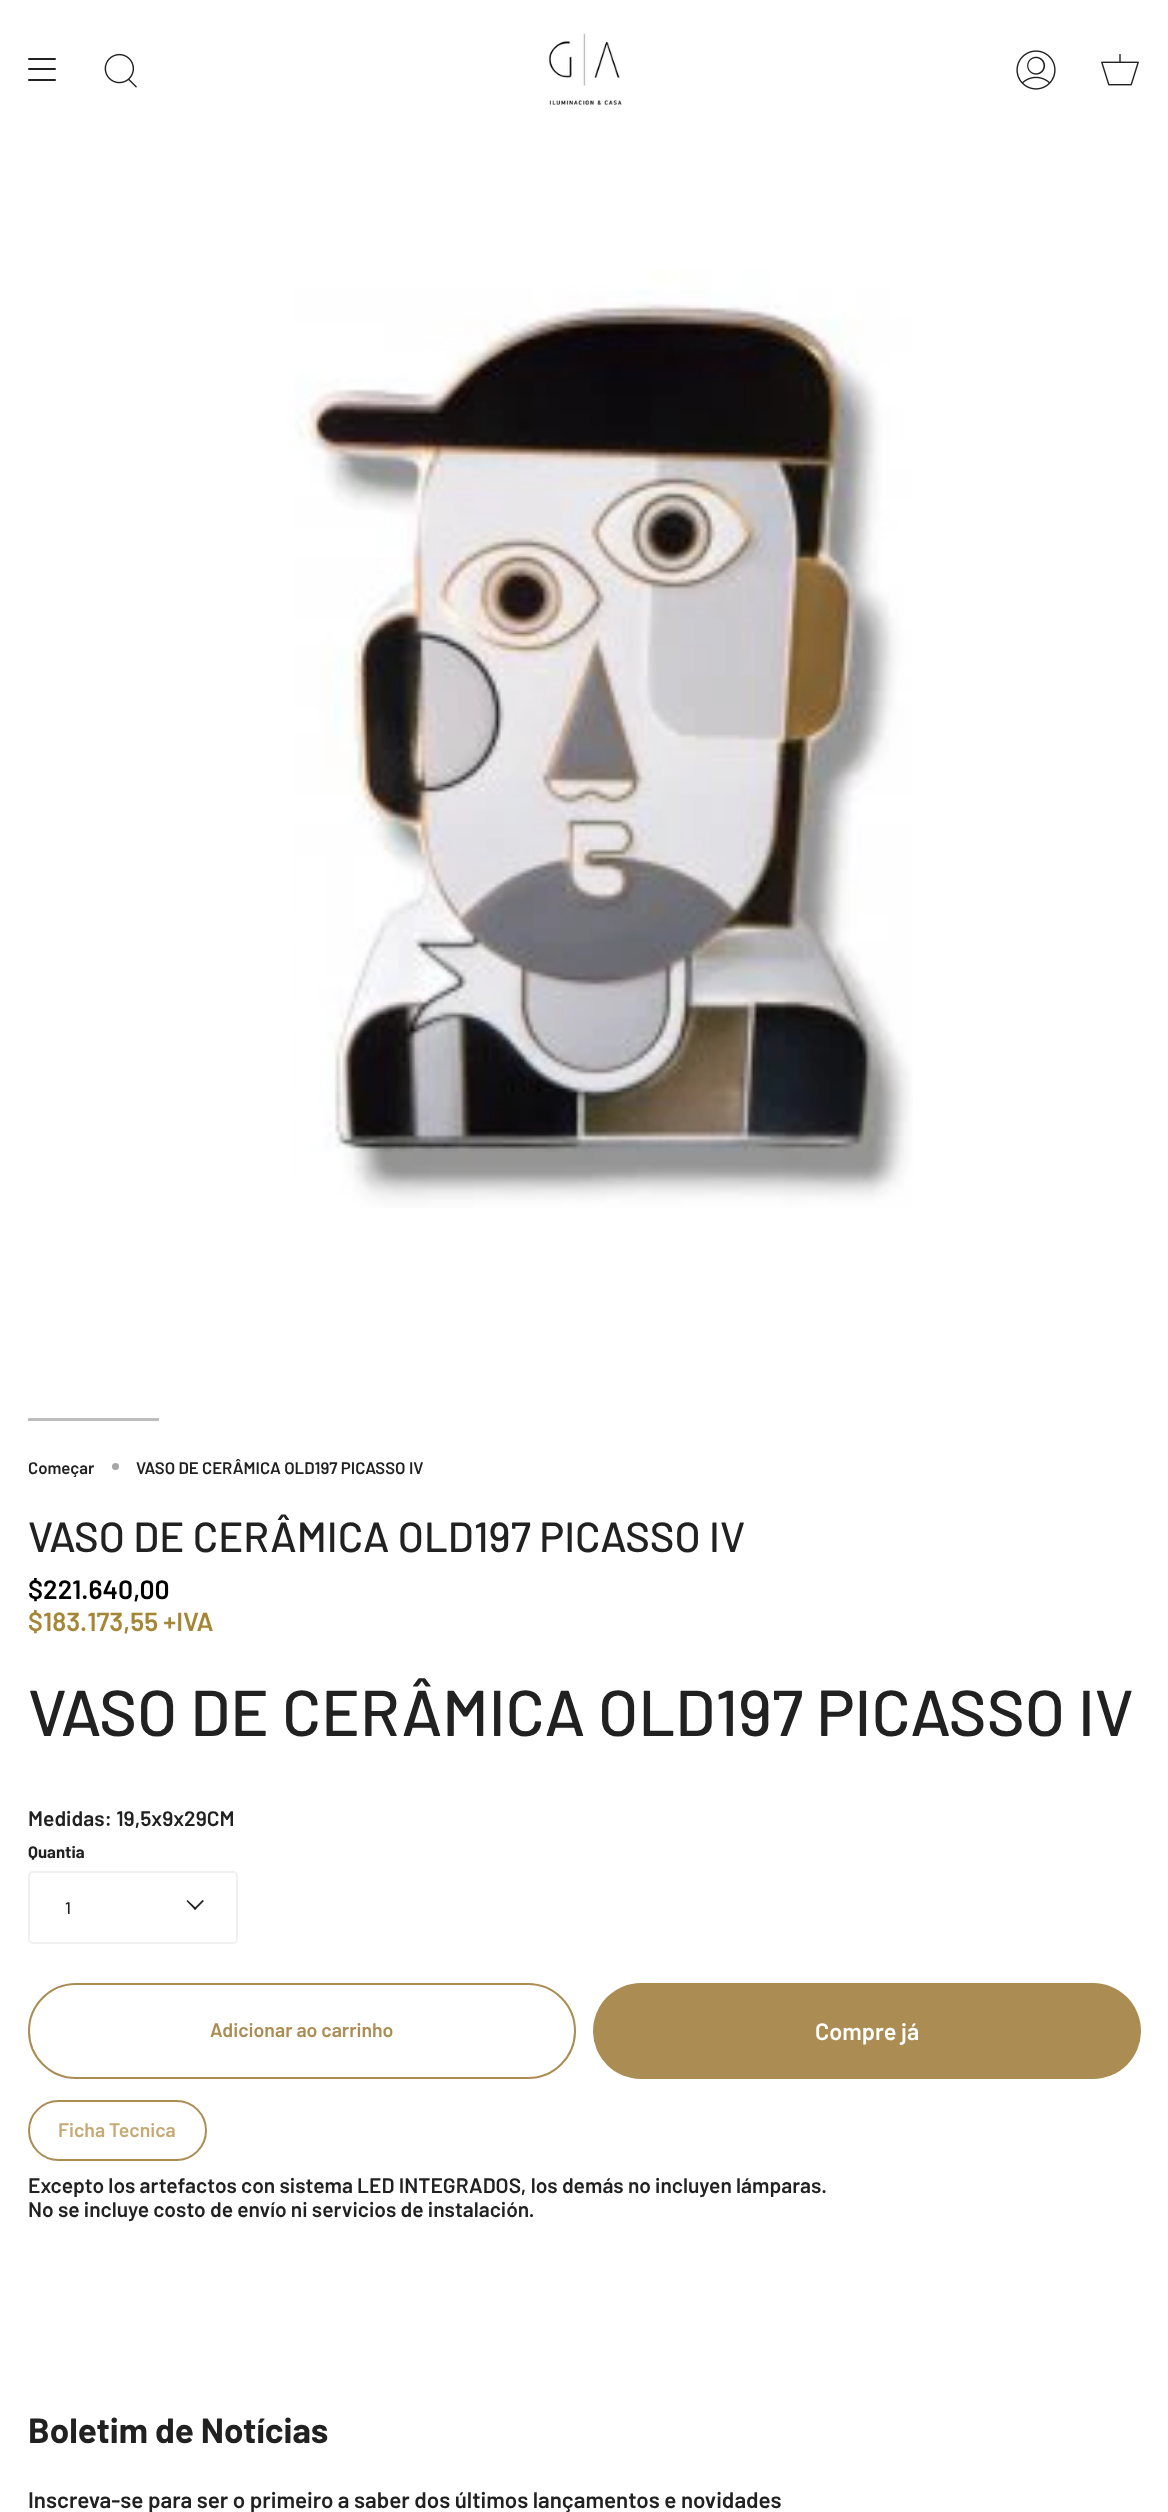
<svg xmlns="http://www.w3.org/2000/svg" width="1168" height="2512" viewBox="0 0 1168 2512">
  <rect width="100%" height="100%" fill="rgb(255,255,255)"/>
  <rect x="28" y="58" width="28" height="2" rx="1" fill="rgb(33,33,33)"/>
  <rect x="28" y="68" width="28" height="2" rx="1" fill="rgb(33,33,33)"/>
  <rect x="28" y="79" width="28" height="2" rx="1" fill="rgb(33,33,33)"/>
  <image x="104" y="53" width="33" height="35" href="pic1.png"/>
  <image x="547" y="33" width="75" height="73" href="pic2.png"/>
  <image x="1016" y="50" width="40" height="40" href="pic3.png"/>
  <image x="1101" y="54" width="38" height="32" href="pic4.png"/>
  <image x="294" y="270" width="619" height="938" href="pic5.png"/>
  <rect x="28" y="1418" width="131" height="3" fill="rgb(189,189,189)"/>
  <text x="28" y="1474" font-family="Barlow" font-size="16.75" font-weight="600" fill="rgb(33,33,33)">Começar</text>
  <circle cx="115.5" cy="1466.5" r="3.5" fill="rgb(166,166,166)"/>
  <text x="136" y="1474" font-family="Barlow" font-size="16.75" font-weight="600" fill="rgb(33,33,33)">VASO DE CERÂMICA OLD197 PICASSO IV</text>
  <text x="28" y="1552" font-family="Barlow" font-size="42" font-weight="500" fill="rgb(33,33,33)">VASO DE CERÂMICA OLD197 PICASSO IV</text>
  <text x="28" y="1599" font-family="Barlow" font-size="26.5" font-weight="600" fill="rgb(0,0,0)">$221.640,00</text>
  <text x="28" y="1631" font-family="Barlow" font-size="26.25" font-weight="600" fill="rgb(164,134,53)">$183.173,55 +IVA</text>
  <text x="28" y="1736" font-family="Barlow" font-size="64.75" font-weight="500" fill="rgb(33,33,33)">VASO DE CERÂMICA OLD197 PICASSO IV</text>
  <text x="28" y="1826" font-family="Barlow" font-size="21" font-weight="600" fill="rgb(33,33,33)">Medidas: 19,5x9x29CM</text>
  <text x="28" y="1858" font-family="Barlow" font-size="16.75" font-weight="bold" fill="rgb(33,33,33)">Quantia</text>
  <rect x="29" y="1872" width="208" height="71" rx="4" fill="none" stroke="rgb(240,240,240)" stroke-width="2"/>
  <text x="65" y="1914" font-family="Barlow" font-size="16.75" font-weight="500" fill="rgb(33,33,33)">1</text>
  <path d="M194 1908.5L202.5 1900L204 1901L195 1910Z" fill="rgb(33,33,33)"/>
  <path d="M186.5 1901L187.5 1900L196.5 1908.5L195 1910Z" fill="rgb(33,33,33)"/>
  <rect x="29" y="1984" width="546" height="94" rx="47" fill="none" stroke="rgb(171,140,82)" stroke-width="2"/>
  <text x="210" y="2037" font-family="Barlow" font-size="19.5" font-weight="600" fill="rgb(171,140,82)">Adicionar ao carrinho</text>
  <rect x="593" y="1983" width="548" height="96" rx="48" fill="rgb(171,140,82)"/>
  <text x="815" y="2040" font-family="Barlow" font-size="23.5" font-weight="600" fill="rgb(255,255,255)">Compre já</text>
  <rect x="29" y="2101" width="177" height="59" rx="29.5" fill="none" stroke="rgb(171,140,82)" stroke-width="2"/>
  <text x="58" y="2137" font-family="Barlow" font-size="19.5" font-weight="600" fill="rgb(197,170,118)">Ficha Tecnica</text>
  <g font-family="Barlow" font-size="21" font-weight="600" fill="rgb(33,33,33)">
    <text>
      <tspan x="28" y="2193">Excepto los artefactos con sistema LED INTEGRADOS, los demás no incluyen lámparas.</tspan>
      <tspan x="28" y="2217">No se incluye costo de envío ni servicios de instalación.</tspan>
    </text>
  </g>
  <text x="28" y="2443" font-family="Barlow" font-size="35" font-weight="bold" fill="rgb(33,33,33)">Boletim de Notícias</text>
  <text x="28" y="2508" font-family="Barlow" font-size="22.4" font-weight="600" fill="rgb(33,33,33)">Inscreva-se para ser o primeiro a saber dos últimos lançamentos e novidades</text>
</svg>
